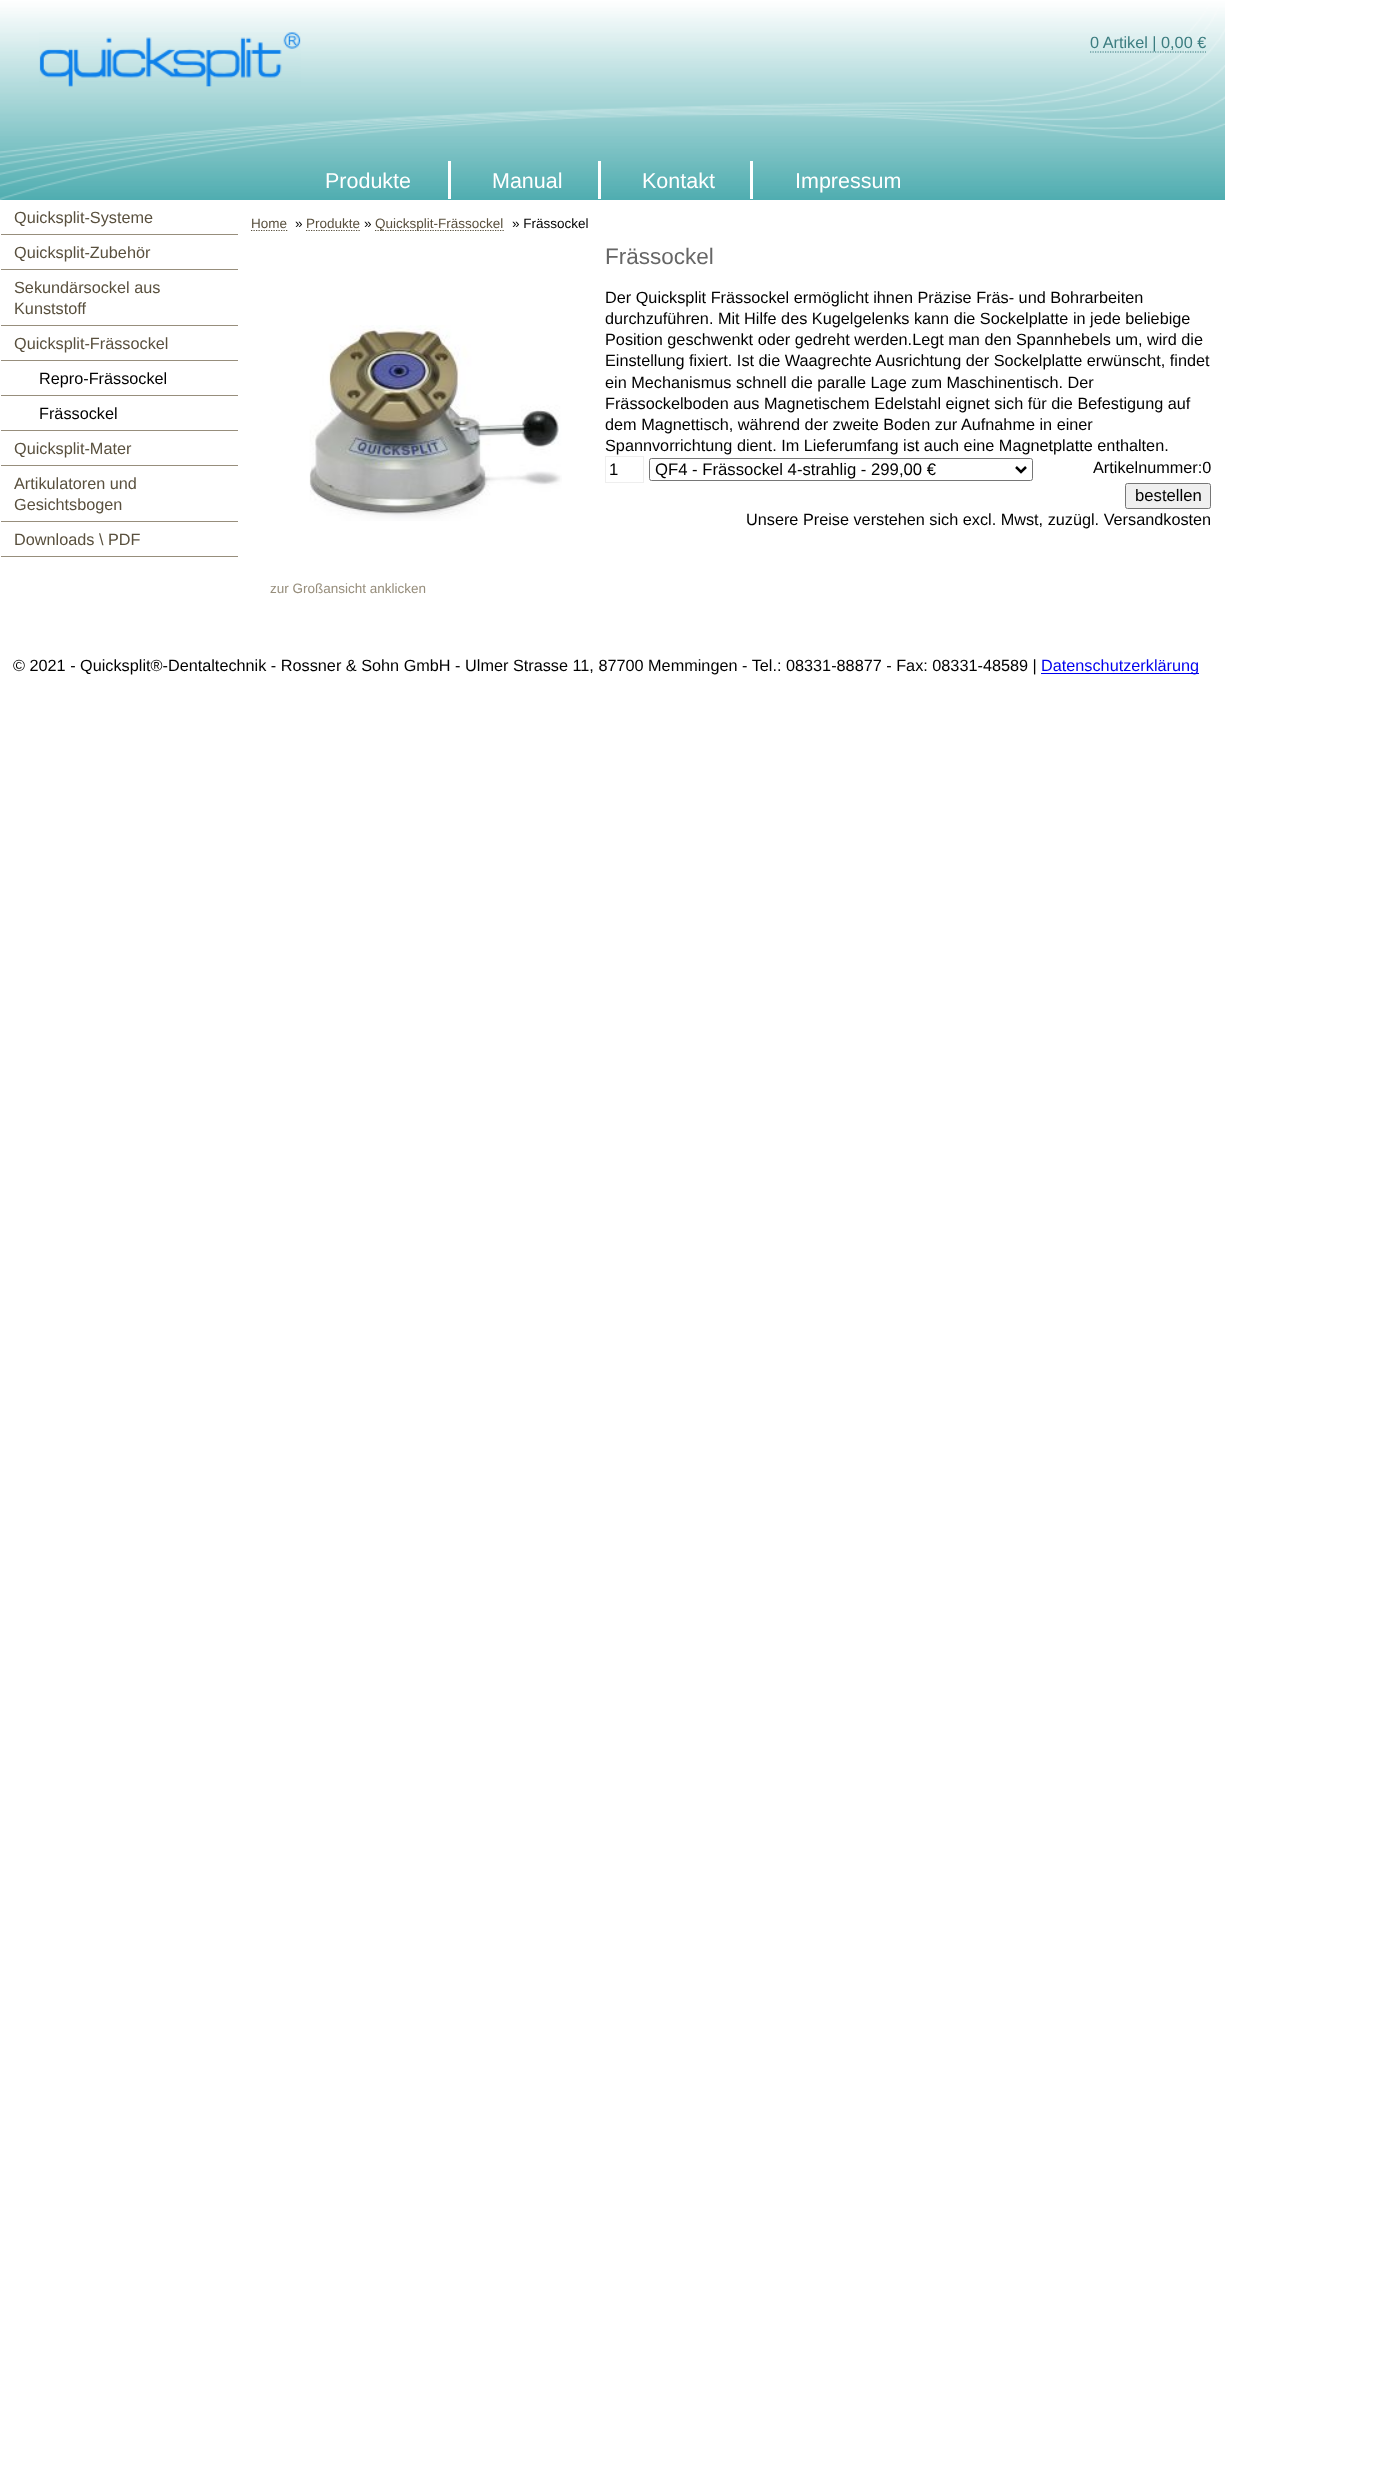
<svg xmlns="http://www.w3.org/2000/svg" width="1388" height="2467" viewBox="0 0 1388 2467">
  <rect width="100%" height="100%" fill="rgb(255,255,255)"/>
  <image x="0" y="0" width="1225" height="200" href="pic1.png"/>
  <path d="M1090 52H1206" fill="none" stroke="rgb(60,125,128)" stroke-width="1.2" stroke-dasharray="1.25 1.25"/>
  <text x="1090" y="48" font-family="Liberation Sans" font-size="16.25" fill="rgb(60,125,128)">0 Artikel | 0,00 €</text>
  <image x="39" y="32" width="262" height="55" href="pic2.png"/>
  <text x="325" y="188" font-family="Liberation Sans" font-size="21.5" fill="rgb(255,255,255)">Produkte</text>
  <rect x="448" y="161" width="3" height="38" fill="rgb(255,255,255)"/>
  <text x="492" y="188" font-family="Liberation Sans" font-size="21.5" fill="rgb(255,255,255)">Manual</text>
  <rect x="598" y="161" width="3" height="38" fill="rgb(255,255,255)"/>
  <text x="642" y="188" font-family="Liberation Sans" font-size="21.5" fill="rgb(255,255,255)">Kontakt</text>
  <rect x="750" y="161" width="3" height="38" fill="rgb(255,255,255)"/>
  <text x="795" y="188" font-family="Liberation Sans" font-size="21.5" fill="rgb(255,255,255)">Impressum</text>
  <rect x="1" y="234" width="237" height="1" fill="rgb(151,142,124)"/>
  <text x="14" y="223" font-family="Liberation Sans" font-size="16.25" fill="rgb(89,80,62)">Quicksplit-Systeme</text>
  <rect x="1" y="269" width="237" height="1" fill="rgb(151,142,124)"/>
  <text x="14" y="258" font-family="Liberation Sans" font-size="16.25" fill="rgb(89,80,62)">Quicksplit-Zubehör</text>
  <rect x="1" y="325" width="237" height="1" fill="rgb(151,142,124)"/>
  <g font-family="Liberation Sans" font-size="16.25" fill="rgb(89,80,62)">
    <text>
      <tspan x="14" y="293">Sekundärsockel aus</tspan>
      <tspan x="14" y="314">Kunststoff</tspan>
    </text>
  </g>
  <rect x="1" y="360" width="237" height="1" fill="rgb(151,142,124)"/>
  <text x="14" y="349" font-family="Liberation Sans" font-size="16.25" fill="rgb(89,80,62)">Quicksplit-Frässockel</text>
  <rect x="1" y="395" width="237" height="1" fill="rgb(151,142,124)"/>
  <text x="39" y="384" font-family="Liberation Sans" font-size="16.25" fill="rgb(0,0,0)">Repro-Frässockel</text>
  <rect x="1" y="430" width="237" height="1" fill="rgb(151,142,124)"/>
  <text x="39" y="419" font-family="Liberation Sans" font-size="16.25" fill="rgb(0,0,0)">Frässockel</text>
  <rect x="1" y="465" width="237" height="1" fill="rgb(151,142,124)"/>
  <text x="14" y="454" font-family="Liberation Sans" font-size="16.25" fill="rgb(89,80,62)">Quicksplit-Mater</text>
  <rect x="1" y="521" width="237" height="1" fill="rgb(151,142,124)"/>
  <g font-family="Liberation Sans" font-size="16.25" fill="rgb(89,80,62)">
    <text>
      <tspan x="14" y="489">Artikulatoren und</tspan>
      <tspan x="14" y="510">Gesichtsbogen</tspan>
    </text>
  </g>
  <rect x="1" y="556" width="237" height="1" fill="rgb(151,142,124)"/>
  <text x="14" y="545" font-family="Liberation Sans" font-size="16.25" fill="rgb(89,80,62)">Downloads \ PDF</text>
  <text x="251" y="228" font-family="Liberation Sans" font-size="13.5" fill="rgb(89,80,62)">Home</text>
  <path d="M251 230.5H287.5" fill="none" stroke="rgb(89,80,62)" stroke-width="1.2" stroke-dasharray="1.25 1.25"/>
  <text x="295" y="228" font-family="Liberation Sans" font-size="13.5" fill="rgb(0,0,0)">»</text>
  <text x="306" y="228" font-family="Liberation Sans" font-size="13.5" fill="rgb(89,80,62)">Produkte</text>
  <path d="M306 230.5H360" fill="none" stroke="rgb(89,80,62)" stroke-width="1.2" stroke-dasharray="1.25 1.25"/>
  <text x="364" y="228" font-family="Liberation Sans" font-size="13.5" fill="rgb(0,0,0)">»</text>
  <path d="M375 230.5H504" fill="none" stroke="rgb(89,80,62)" stroke-width="1.2" stroke-dasharray="1.25 1.25"/>
  <text x="375" y="228" font-family="Liberation Sans" font-size="13.5" fill="rgb(89,80,62)">Quicksplit-Frässockel</text>
  <text x="512" y="228" font-family="Liberation Sans" font-size="13.5" fill="rgb(0,0,0)">» Frässockel</text>
  <text x="605" y="264" font-family="Liberation Sans" font-size="22.5" fill="rgb(102,102,102)">Frässockel</text>
  <g font-family="Liberation Sans" font-size="16.25" fill="rgb(0,0,0)">
    <text>
      <tspan x="605" y="303">Der Quicksplit Frässockel ermöglicht ihnen Präzise Fräs- und Bohrarbeiten</tspan>
      <tspan x="605" y="324">durchzuführen. Mit Hilfe des Kugelgelenks kann die Sockelplatte in jede beliebige</tspan>
      <tspan x="605" y="345">Position geschwenkt oder gedreht werden.Legt man den Spannhebels um, wird die</tspan>
      <tspan x="605" y="366">Einstellung fixiert. Ist die Waagrechte Ausrichtung der Sockelplatte erwünscht, findet</tspan>
      <tspan x="605" y="388">ein Mechanismus schnell die paralle Lage zum Maschinentisch. Der</tspan>
      <tspan x="605" y="409">Frässockelboden aus Magnetischem Edelstahl eignet sich für die Befestigung auf</tspan>
      <tspan x="605" y="430">dem Magnettisch, während der zweite Boden zur Aufnahme in einer</tspan>
      <tspan x="605" y="451">Spannvorrichtung dient. Im Lieferumfang ist auch eine Magnetplatte enthalten.</tspan>
    </text>
    <text x="1093" y="473">Artikelnummer:0</text>
  </g>
  <rect x="605.5" y="456.5" width="38" height="26" fill="none" stroke="rgb(238,238,238)"/>
  <text x="609" y="475" font-family="Liberation Sans" font-size="16.7" fill="rgb(0,0,0)">1</text>
  <rect x="649.5" y="458.5" width="383" height="22" rx="2" fill="none" stroke="rgb(118,118,118)"/>
  <path d="M1016 467L1021 472L1026 467" fill="none" stroke="rgb(0,0,0)" stroke-width="2.5"/>
  <text x="655" y="475" font-family="Liberation Sans" font-size="16.7" fill="rgb(0,0,0)">QF4 - Frässockel 4-strahlig - 299,00 €</text>
  <rect x="1125.5" y="483.5" width="85" height="25" rx="2" fill="rgb(239,239,239)" stroke="rgb(118,118,118)"/>
  <text x="1135" y="501" font-family="Liberation Sans" font-size="16.7" fill="rgb(0,0,0)">bestellen</text>
  <text x="746" y="525" font-family="Liberation Sans" font-size="16.25" fill="rgb(0,0,0)">Unsere Preise verstehen sich excl. Mwst, zuzügl. Versandkosten</text>
  <image x="309" y="325" width="253" height="196" href="pic3.png"/>
  <text x="270" y="593" font-family="Liberation Sans" font-size="13.5" fill="rgb(151,142,124)">zur Großansicht anklicken</text>
  <text x="13" y="671" font-family="Liberation Sans" font-size="16.25" fill="rgb(0,0,0)">© 2021 - Quicksplit®-Dentaltechnik - Rossner &amp; Sohn GmbH - Ulmer Strasse 11, 87700 Memmingen - Tel.: 08331-88877 - Fax: 08331-48589 |</text>
  <rect x="1041" y="673" width="158" height="1" fill="rgb(0,0,238)"/>
  <text x="1041" y="671" font-family="Liberation Sans" font-size="16.25" fill="rgb(0,0,238)">Datenschutzerklärung</text>
</svg>
